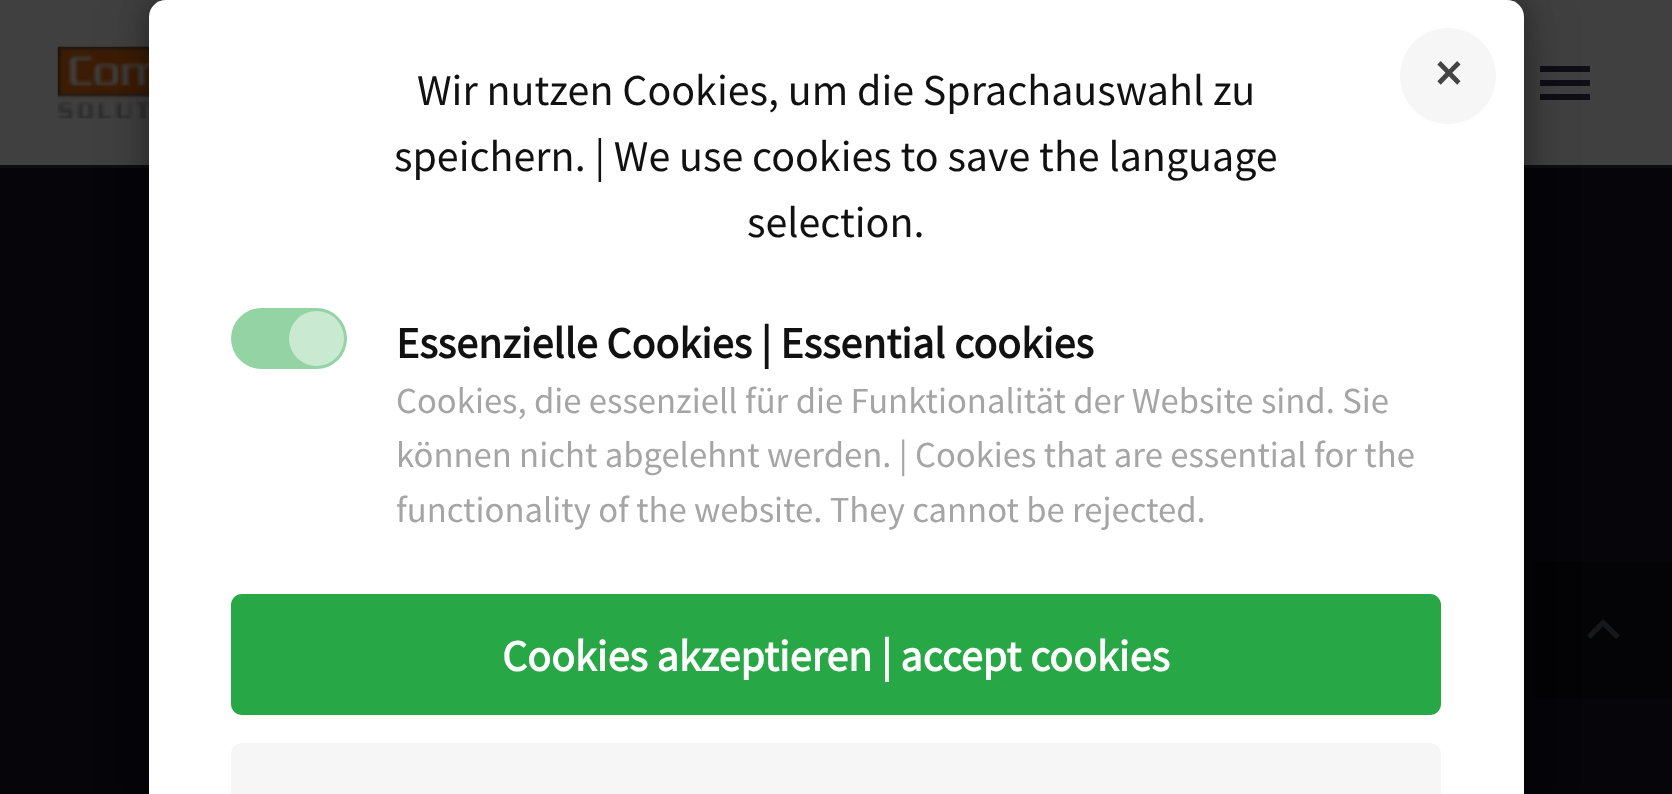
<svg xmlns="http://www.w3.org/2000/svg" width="1672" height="794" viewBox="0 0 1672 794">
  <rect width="100%" height="100%" fill="rgb(64,64,64)"/>
  <image x="57" y="46" width="92" height="73" href="pic1.png"/>
  <rect x="1540" y="66" width="50" height="6" fill="rgb(15,14,20)"/>
  <rect x="1540" y="80" width="50" height="6" fill="rgb(15,14,20)"/>
  <rect x="1540" y="94" width="50" height="6" fill="rgb(15,14,20)"/>
  <rect x="0" y="168" width="1672" height="626" fill="rgb(6,6,10)"/>
  <rect x="0" y="165" width="1672" height="3" fill="rgb(12,14,18)"/>
  <rect x="1535" y="561" width="137" height="138" fill="rgb(4,4,7)"/>
  <path d="M1590.5 639L1603 626.5L1616 639L1620 635.5L1603 619L1587 635.5Z" fill="rgb(22,24,28)"/>
  <rect x="149" y="0" width="1375" height="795" rx="17" fill="rgba(0,0,0,0.2)" filter="blur(27.5px)"/>
  <rect x="149" y="0" width="1375" height="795" rx="17" fill="rgba(0,0,0,0.3)" filter="blur(14px)"/>
  <path d="M166 0H1507C1516.5 0 1524 7.5 1524 17V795H149V17C149 7.5 156.5 0 166 0Z" fill="rgb(255,255,255)"/>
  <circle cx="1448" cy="76" r="48" fill="rgb(246,246,246)"/>
  <text x="1435" y="91" font-family="Source Sans Pro" font-size="53" font-weight="bold" fill="rgb(68,68,68)">×</text>
  <rect x="231" y="594" width="1210" height="121" rx="11" fill="rgb(40,167,70)"/>
  <text x="502" y="671" font-family="Source Sans Pro" font-size="44" font-weight="bold" fill="rgb(255,255,255)">Cookies akzeptieren | accept cookies</text>
  <path d="M242 743H1430C1436 743 1441 748 1441 754V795H231V754C231 748 236 743 242 743Z" fill="rgb(246,246,246)"/>
  <g font-family="Source Sans Pro" font-size="44" fill="rgb(17,17,17)">
    <text x="417" y="105">Wir nutzen Cookies, um die Sprachauswahl zu</text>
    <text x="394" y="171">speichern. | We use cookies to save the language</text>
    <text x="747" y="237">selection.</text>
  </g>
  <rect x="231" y="308" width="116" height="61" rx="30.5" fill="rgb(148,211,163)"/>
  <circle cx="316.5" cy="338.5" r="27.5" fill="rgb(202,233,209)"/>
  <text x="396" y="358" font-family="Source Sans Pro" font-size="44" font-weight="bold" fill="rgb(17,17,17)">Essenzielle Cookies | Essential cookies</text>
  <g font-family="Source Sans Pro" font-size="36.7" fill="rgb(165,165,165)">
    <text>
      <tspan x="396" y="413">Cookies, die essenziell für die Funktionalität der Website sind. Sie</tspan>
      <tspan x="396" y="467">können nicht abgelehnt werden. | Cookies that are essential for the</tspan>
      <tspan x="396" y="522">functionality of the website. They cannot be rejected.</tspan>
    </text>
  </g>
</svg>
